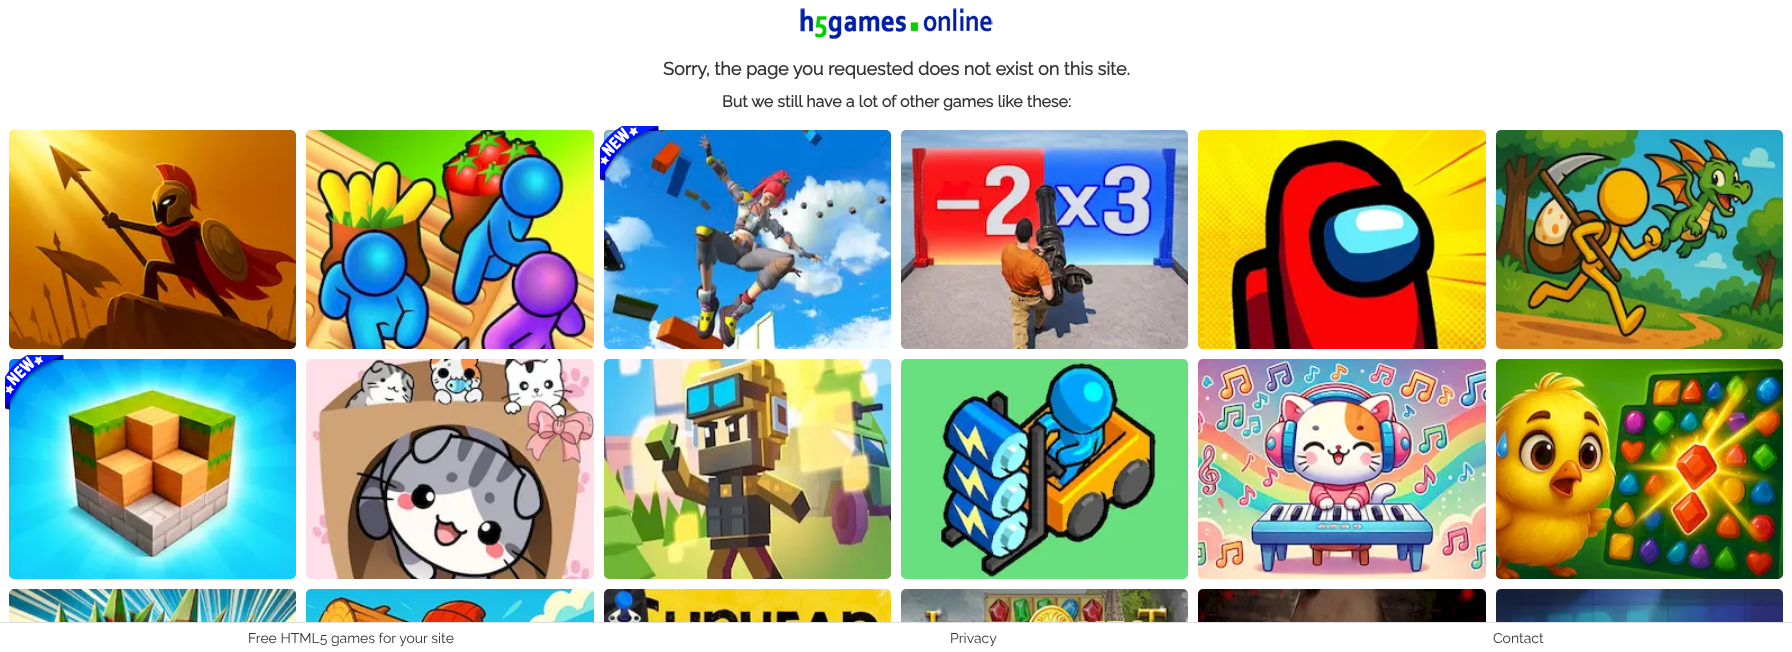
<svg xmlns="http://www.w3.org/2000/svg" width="1792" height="652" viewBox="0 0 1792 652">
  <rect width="100%" height="100%" fill="rgb(255,255,255)"/>
  <image x="800" y="8" width="193" height="31" href="pic1.png"/>
  <text x="663" y="75" font-family="Raleway" font-size="18" font-weight="bold" fill="rgb(51,51,51)">Sorry, the page you requested does not exist on this site.</text>
  <text x="722" y="107" font-family="Raleway" font-size="16" font-weight="bold" fill="rgb(51,51,51)">But we still have a lot of other games like these:</text>
  <image x="9" y="130" width="287" height="219" href="pic2.png"/>
  <image x="306" y="130" width="288" height="219" href="pic3.png"/>
  <image x="604" y="130" width="287" height="219" href="pic5.png"/>
  <image x="600" y="126" width="59" height="55" href="pic4.png"/>
  <image x="901" y="130" width="287" height="219" href="pic6.png"/>
  <image x="1198" y="130" width="288" height="219" href="pic7.png"/>
  <image x="1496" y="130" width="287" height="219" href="pic8.png"/>
  <image x="9" y="359" width="287" height="220" href="pic10.png"/>
  <image x="5" y="355" width="59" height="55" href="pic9.png"/>
  <image x="306" y="359" width="288" height="220" href="pic11.png"/>
  <image x="604" y="359" width="287" height="220" href="pic12.png"/>
  <image x="901" y="359" width="287" height="220" href="pic13.png"/>
  <image x="1198" y="359" width="288" height="220" href="pic14.png"/>
  <image x="1496" y="359" width="287" height="220" href="pic15.png"/>
  <image x="9" y="589" width="287" height="33" href="pic16.png"/>
  <image x="306" y="589" width="288" height="33" href="pic17.png"/>
  <image x="604" y="589" width="287" height="33" href="pic18.png"/>
  <image x="901" y="589" width="287" height="33" href="pic19.png"/>
  <image x="1198" y="589" width="288" height="33" href="pic20.png"/>
  <image x="1496" y="589" width="287" height="33" href="pic21.png"/>
  <rect x="0" y="622" width="1792" height="1" fill="rgb(221,221,221)"/>
  <g font-family="Raleway" font-size="14" font-weight="100" fill="rgb(51,51,51)">
    <text x="248" y="643">Free HTML5 games for your site</text>
    <text x="950" y="643">Privacy</text>
    <text x="1493" y="643">Contact</text>
  </g>
</svg>
